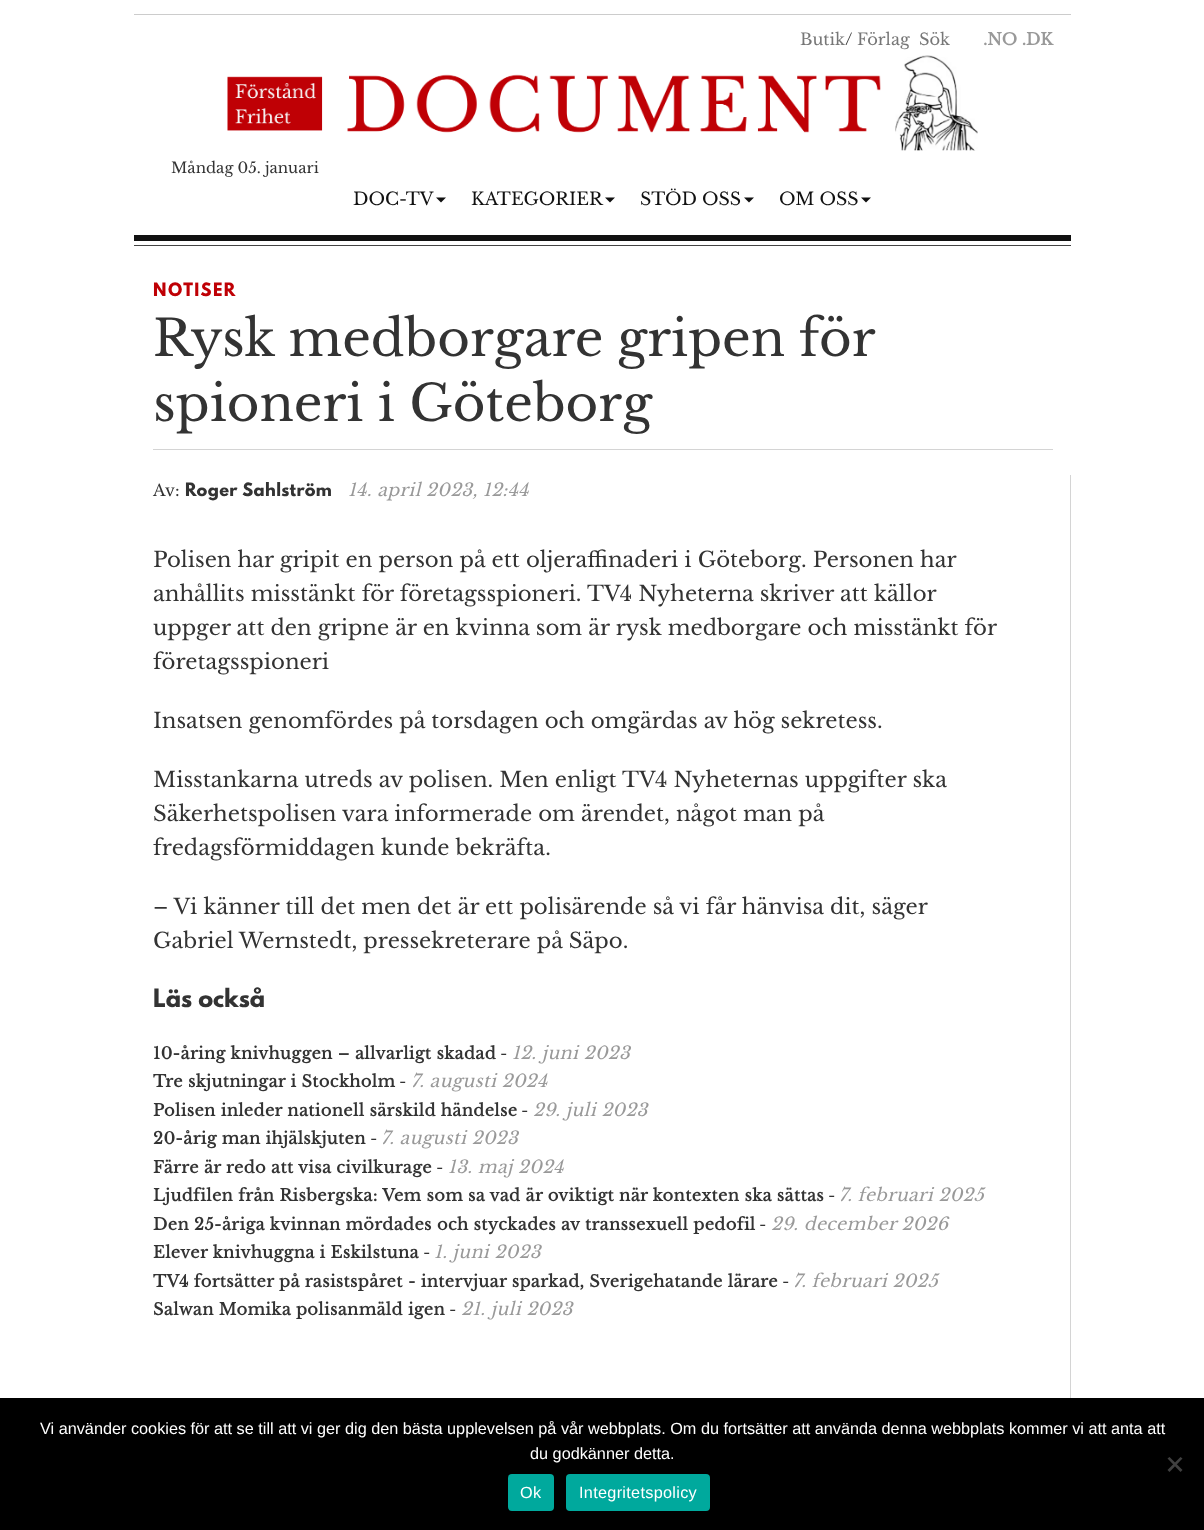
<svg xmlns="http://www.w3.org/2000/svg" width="1204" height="1530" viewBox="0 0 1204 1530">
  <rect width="100%" height="100%" fill="rgb(255,255,255)"/>
  <rect x="134" y="14" width="937" height="1" fill="rgb(204,204,204)"/>
  <text x="800" y="45" font-family="Libre Baskerville" font-size="16.25" fill="rgb(119,119,119)">Butik</text>
  <text x="845" y="45" font-family="Libre Baskerville" font-size="16.25" fill="rgb(51,51,51)">/</text>
  <g font-family="Libre Baskerville" font-size="16.25" fill="rgb(119,119,119)">
    <text x="857" y="45">Förlag</text>
    <text x="919" y="45">Sök</text>
  </g>
  <text x="983" y="45" font-family="Libre Baskerville" font-size="16.25" font-weight="bold" fill="rgb(153,153,153)">.NO .DK</text>
  <image x="227" y="55" width="751" height="96" href="pic1.png"/>
  <text x="171" y="173" font-family="Libre Baskerville" font-size="15" fill="rgb(51,51,51)">Måndag 05. januari</text>
  <text x="353" y="205" font-family="Libre Baskerville" font-size="17.5" fill="rgb(17,17,17)">DOC-TV</text>
  <path d="M436 197.5H446L441 202.5Z" fill="rgb(17,17,17)"/>
  <text x="471" y="205" font-family="Libre Baskerville" font-size="17.5" fill="rgb(17,17,17)">KATEGORIER</text>
  <path d="M605 197.5H615L610 202.5Z" fill="rgb(17,17,17)"/>
  <text x="640" y="205" font-family="Libre Baskerville" font-size="17.5" fill="rgb(17,17,17)">STÖD OSS</text>
  <path d="M744 197.5H754L749 202.5Z" fill="rgb(17,17,17)"/>
  <text x="779" y="205" font-family="Libre Baskerville" font-size="17.5" fill="rgb(17,17,17)">OM OSS</text>
  <path d="M861 197.5H871L866 202.5Z" fill="rgb(17,17,17)"/>
  <rect x="134" y="235" width="937" height="6" fill="rgb(17,17,17)"/>
  <rect x="134" y="245" width="937" height="1" fill="rgb(68,68,68)"/>
  <text x="153" y="296" font-family="League Spartan" font-size="16.25" font-weight="bold" letter-spacing="1.5" fill="rgb(191,0,5)">NOTISER</text>
  <g font-family="Libre Baskerville" font-size="50" fill="rgb(51,51,51)">
    <text>
      <tspan x="153" y="356" word-spacing="-0.5">Rysk medborgare gripen för</tspan>
      <tspan x="153" y="421">spioneri i Göteborg</tspan>
    </text>
  </g>
  <rect x="153" y="449" width="900" height="1" fill="rgb(212,212,212)"/>
  <rect x="1070" y="475" width="1" height="923" fill="rgb(212,212,212)"/>
  <text x="153" y="496" font-family="Libre Baskerville" font-size="16.25" letter-spacing="0.38" fill="rgb(51,51,51)">Av:</text>
  <text x="185" y="496" font-family="League Spartan" font-size="16.25" font-weight="bold" letter-spacing="0.38" fill="rgb(51,51,51)">Roger Sahlström</text>
  <text x="348" y="496" font-family="Libre Baskerville" font-size="17.5" font-style="italic" letter-spacing="0.38" fill="rgb(153,153,153)">14. april 2023, 12:44</text>
  <g font-family="Libre Baskerville" font-size="21.25" fill="rgb(51,51,51)">
    <text>
      <tspan x="153" y="567">Polisen har gripit en person på ett oljeraffinaderi i Göteborg. Personen har</tspan>
      <tspan x="153" y="601">anhållits misstänkt för företagsspioneri. TV4 Nyheterna skriver att källor</tspan>
      <tspan x="153" y="635">uppger att den gripne är en kvinna som är rysk medborgare och misstänkt för</tspan>
      <tspan x="153" y="669">företagsspioneri</tspan>
    </text>
    <text x="153" y="728">Insatsen genomfördes på torsdagen och omgärdas av hög sekretess.</text>
    <text>
      <tspan x="153" y="787">Misstankarna utreds av polisen. Men enligt TV4 Nyheternas uppgifter ska</tspan>
      <tspan x="153" y="821">Säkerhetspolisen vara informerade om ärendet, något man på</tspan>
      <tspan x="153" y="855">fredagsförmiddagen kunde bekräfta.</tspan>
    </text>
    <text>
      <tspan x="153" y="914">– Vi känner till det men det är ett polisärende så vi får hänvisa dit, säger</tspan>
      <tspan x="153" y="948">Gabriel Wernstedt, pressekreterare på Säpo.</tspan>
    </text>
  </g>
  <text x="153" y="1007" font-family="League Spartan" font-size="22.5" font-weight="bold" fill="rgb(51,51,51)">Läs också</text>
  <text x="153" y="1059" font-family="Libre Baskerville" font-size="16.25" font-weight="bold" letter-spacing="0.38" fill="rgb(51,51,51)">10-åring knivhuggen – allvarligt skadad</text>
  <text x="500" y="1059" font-family="Libre Baskerville" font-size="16" fill="rgb(51,51,51)">-</text>
  <text x="512" y="1059" font-family="Libre Baskerville" font-size="17.5" font-style="italic" letter-spacing="0.38" fill="rgb(153,153,153)">12. juni 2023</text>
  <text x="153" y="1087" font-family="Libre Baskerville" font-size="16.25" font-weight="bold" letter-spacing="0.38" fill="rgb(51,51,51)">Tre skjutningar i Stockholm</text>
  <text x="399" y="1087" font-family="Libre Baskerville" font-size="16" fill="rgb(51,51,51)">-</text>
  <text x="411" y="1087" font-family="Libre Baskerville" font-size="17.5" font-style="italic" letter-spacing="0.38" fill="rgb(153,153,153)">7. augusti 2024</text>
  <text x="153" y="1116" font-family="Libre Baskerville" font-size="16.25" font-weight="bold" letter-spacing="0.38" fill="rgb(51,51,51)">Polisen inleder nationell särskild händelse</text>
  <text x="521" y="1116" font-family="Libre Baskerville" font-size="16" fill="rgb(51,51,51)">-</text>
  <text x="533" y="1116" font-family="Libre Baskerville" font-size="17.5" font-style="italic" letter-spacing="0.38" fill="rgb(153,153,153)">29. juli 2023</text>
  <text x="153" y="1144" font-family="Libre Baskerville" font-size="16.25" font-weight="bold" letter-spacing="0.38" fill="rgb(51,51,51)">20-årig man ihjälskjuten</text>
  <text x="370" y="1144" font-family="Libre Baskerville" font-size="16" fill="rgb(51,51,51)">-</text>
  <text x="381" y="1144" font-family="Libre Baskerville" font-size="17.5" font-style="italic" letter-spacing="0.38" fill="rgb(153,153,153)">7. augusti 2023</text>
  <text x="153" y="1173" font-family="Libre Baskerville" font-size="16.25" font-weight="bold" letter-spacing="0.38" fill="rgb(51,51,51)">Färre är redo att visa civilkurage</text>
  <text x="436" y="1173" font-family="Libre Baskerville" font-size="16" fill="rgb(51,51,51)">-</text>
  <text x="448" y="1173" font-family="Libre Baskerville" font-size="17.5" font-style="italic" letter-spacing="0.38" fill="rgb(153,153,153)">13. maj 2024</text>
  <text x="153" y="1201" font-family="Libre Baskerville" font-size="16.25" font-weight="bold" letter-spacing="0.38" fill="rgb(51,51,51)">Ljudfilen från Risbergska: Vem som sa vad är oviktigt när kontexten ska sättas</text>
  <text x="828" y="1201" font-family="Libre Baskerville" font-size="16" fill="rgb(51,51,51)">-</text>
  <text x="839" y="1201" font-family="Libre Baskerville" font-size="17.5" font-style="italic" letter-spacing="0.38" fill="rgb(153,153,153)">7. februari 2025</text>
  <text x="153" y="1230" font-family="Libre Baskerville" font-size="16.25" font-weight="bold" letter-spacing="0.38" fill="rgb(51,51,51)">Den 25-åriga kvinnan mördades och styckades av transsexuell pedofil</text>
  <text x="759" y="1230" font-family="Libre Baskerville" font-size="16" fill="rgb(51,51,51)">-</text>
  <text x="771" y="1230" font-family="Libre Baskerville" font-size="17.5" font-style="italic" letter-spacing="0.38" fill="rgb(153,153,153)">29. december 2026</text>
  <text x="153" y="1258" font-family="Libre Baskerville" font-size="16.25" font-weight="bold" letter-spacing="0.38" fill="rgb(51,51,51)">Elever knivhuggna i Eskilstuna</text>
  <text x="423" y="1258" font-family="Libre Baskerville" font-size="16" fill="rgb(51,51,51)">-</text>
  <text x="434" y="1258" font-family="Libre Baskerville" font-size="17.5" font-style="italic" letter-spacing="0.38" fill="rgb(153,153,153)">1. juni 2023</text>
  <text x="153" y="1287" font-family="Libre Baskerville" font-size="16.25" font-weight="bold" letter-spacing="0.38" fill="rgb(51,51,51)">TV4 fortsätter på rasistspåret - intervjuar sparkad, Sverigehatande lärare</text>
  <text x="782" y="1287" font-family="Libre Baskerville" font-size="16" fill="rgb(51,51,51)">-</text>
  <text x="793" y="1287" font-family="Libre Baskerville" font-size="17.5" font-style="italic" letter-spacing="0.38" fill="rgb(153,153,153)">7. februari 2025</text>
  <text x="153" y="1315" font-family="Libre Baskerville" font-size="16.25" font-weight="bold" letter-spacing="0.38" fill="rgb(51,51,51)">Salwan Momika polisanmäld igen</text>
  <text x="449" y="1315" font-family="Libre Baskerville" font-size="16" fill="rgb(51,51,51)">-</text>
  <text x="461" y="1315" font-family="Libre Baskerville" font-size="17.5" font-style="italic" letter-spacing="0.38" fill="rgb(153,153,153)">21. juli 2023</text>
  <rect x="0" y="1398" width="1204" height="132" fill="rgb(0,0,0)"/>
  <g font-family="Liberation Sans" font-size="16.25" fill="rgb(255,255,255)">
    <text x="40" y="1434">Vi använder cookies för att se till att vi ger dig den bästa upplevelsen på vår webbplats. Om du fortsätter att använda denna webbplats kommer vi att anta att</text>
    <text x="530" y="1459">du godkänner detta.</text>
  </g>
  <path d="M1180.5 1457L1182.5 1458.5L1169.5 1472L1167.5 1470Z" fill="rgb(64,64,64)"/>
  <path d="M1167.5 1458.5L1169.5 1457L1182.5 1470L1180.5 1472Z" fill="rgb(64,64,64)"/>
  <rect x="508" y="1474" width="46" height="37" rx="4" fill="rgb(0,169,157)"/>
  <text x="520" y="1498" font-family="Liberation Sans" font-size="16.25" letter-spacing="0.3" fill="rgb(255,255,255)">Ok</text>
  <rect x="566" y="1474" width="144" height="37" rx="4" fill="rgb(0,169,157)"/>
  <text x="579" y="1498" font-family="Liberation Sans" font-size="16.25" letter-spacing="0.3" fill="rgb(255,255,255)">Integritetspolicy</text>
</svg>
